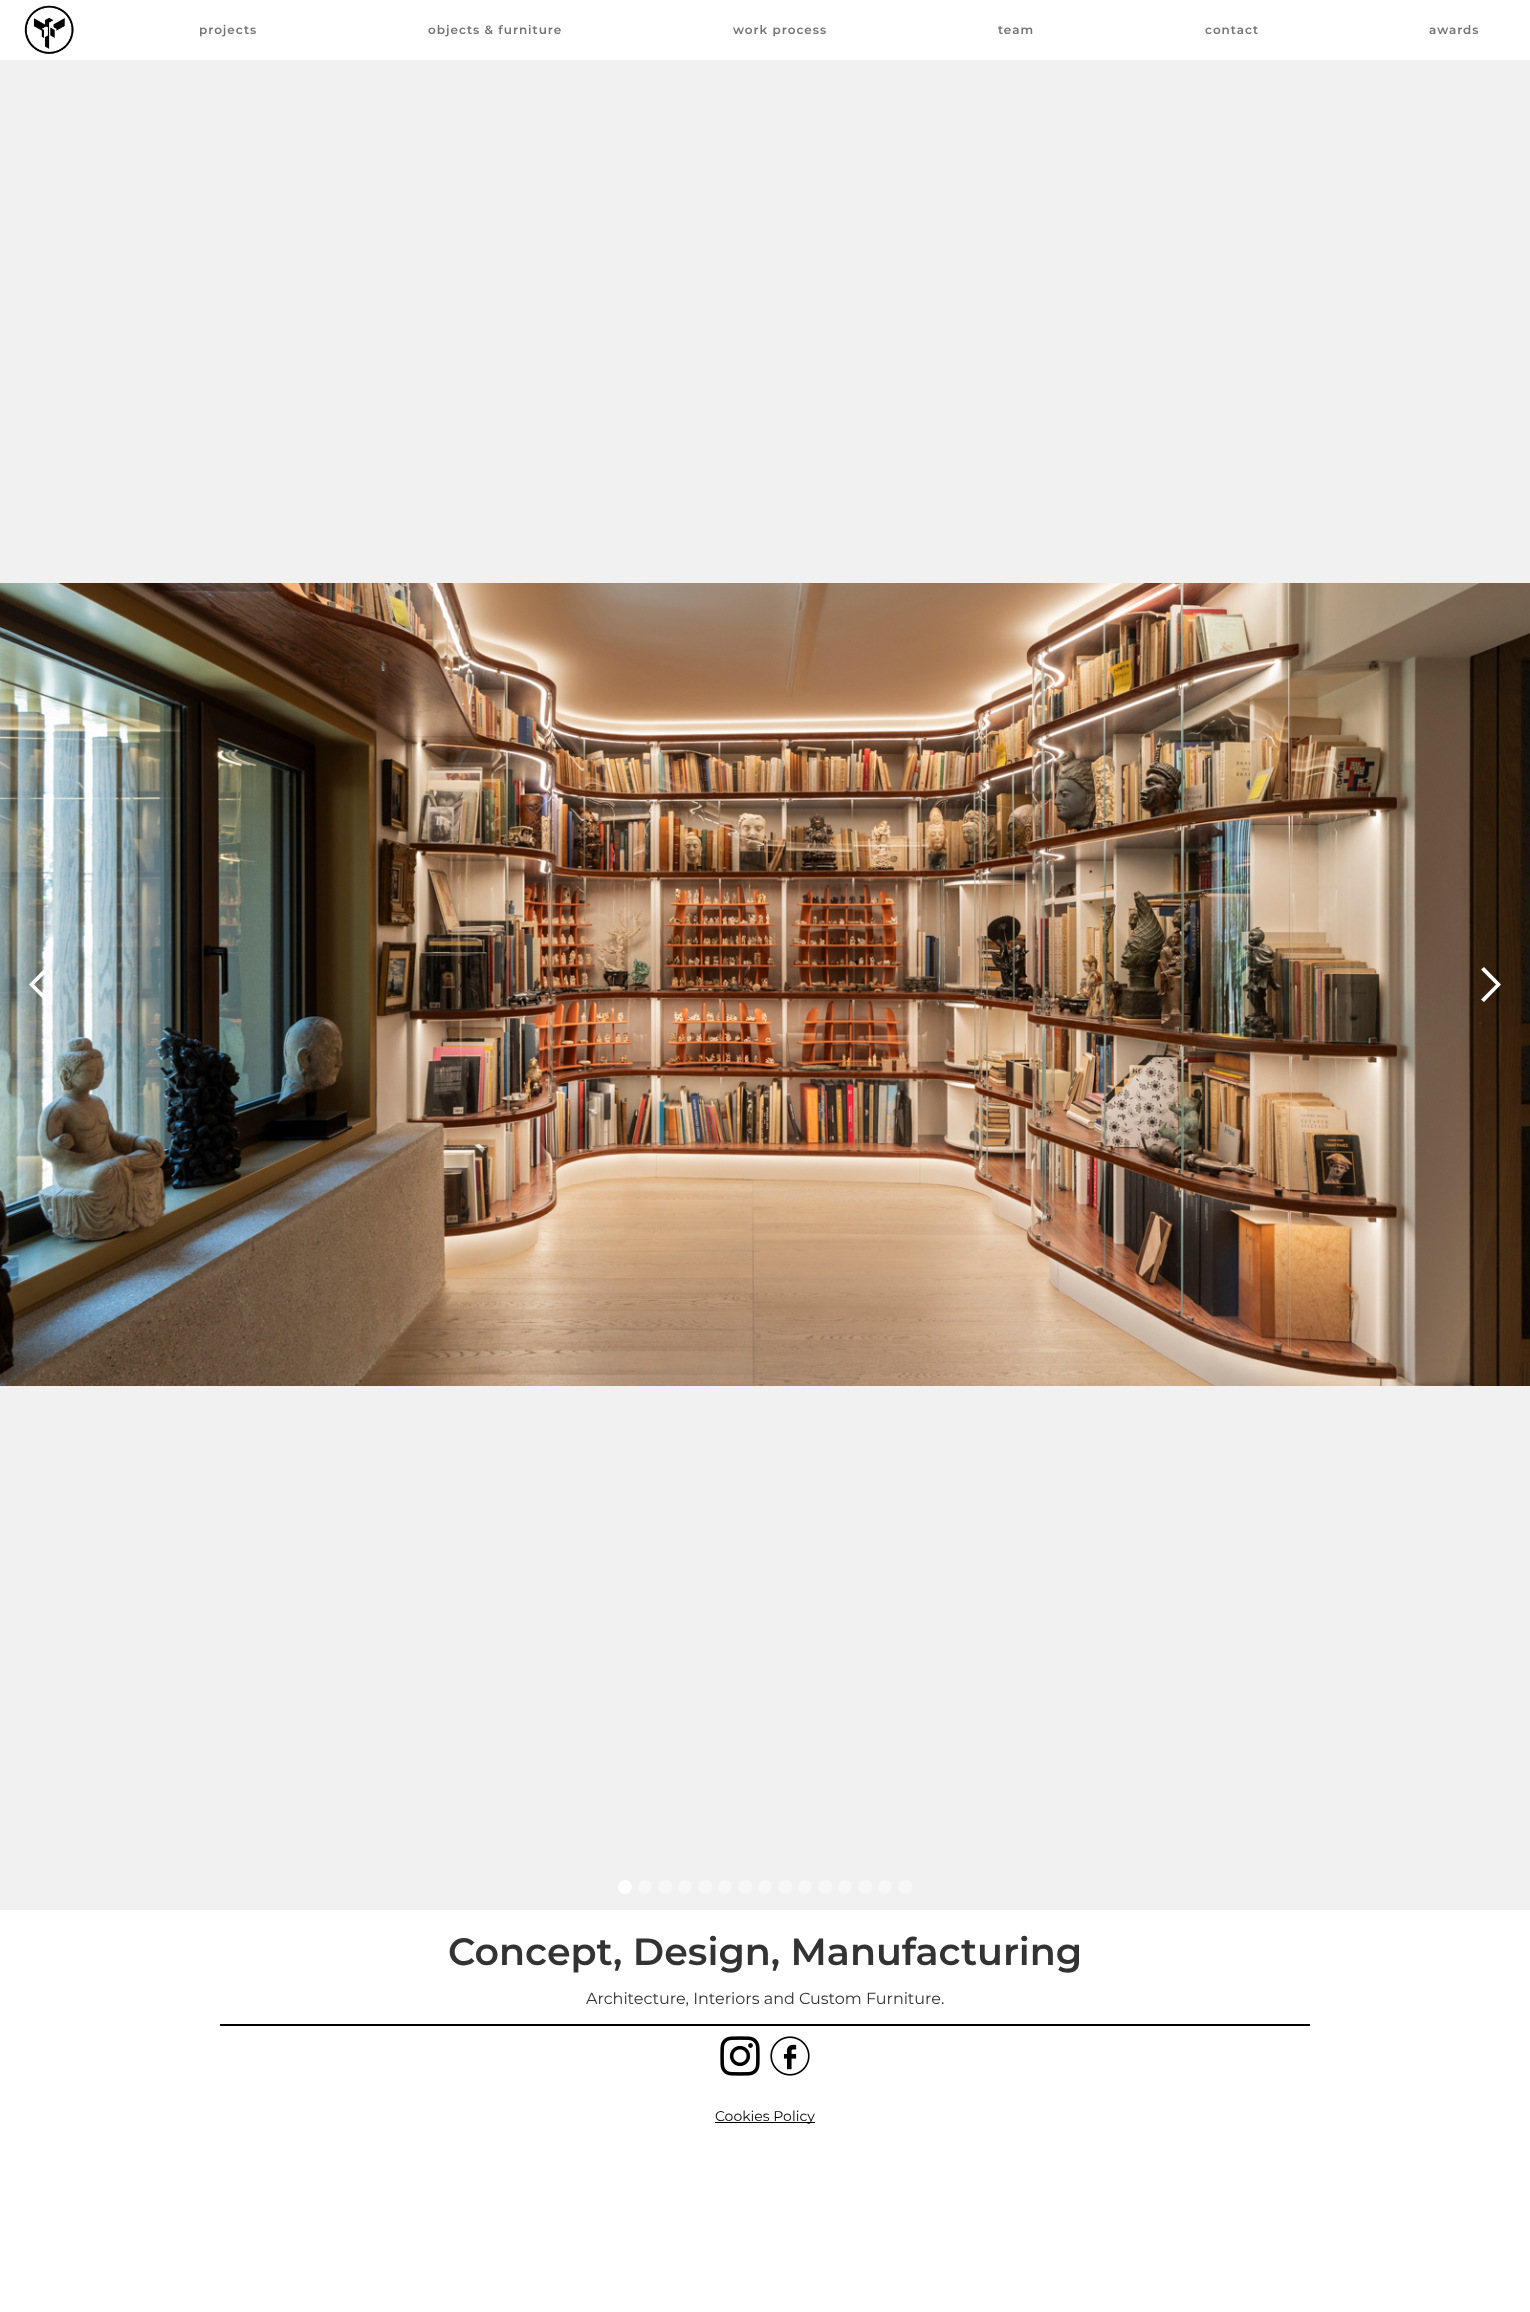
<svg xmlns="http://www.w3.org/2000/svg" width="1530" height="2312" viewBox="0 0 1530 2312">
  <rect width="100%" height="100%" fill="rgb(255,255,255)"/>
  <image x="24" y="5" width="50" height="49" href="pic1.png"/>
  <g font-family="Montserrat" font-size="12" font-weight="600" letter-spacing="1" fill="rgb(116,116,116)">
    <text x="199" y="34">projects</text>
    <text x="428" y="34">objects &amp; furniture</text>
    <text x="733" y="34">work process</text>
    <text x="998" y="34">team</text>
    <text x="1205" y="34">contact</text>
    <text x="1429" y="34">awards</text>
  </g>
  <rect x="0" y="60" width="1530" height="1850" fill="rgb(241,241,241)"/>
  <image x="0" y="583" width="1530" height="803" href="pic2.png"/>
  <path d="M29 984.5L46 967L49 969.5L34 984.5L49 999.5L46 1002Z" fill="rgb(255,255,255)"/>
  <path d="M1501 984.5L1484 967L1481 969.5L1496 984.5L1481 999.5L1484 1002Z" fill="rgb(255,255,255)"/>
  <circle cx="625" cy="1887" r="7" fill="rgb(255,255,255)"/>
  <circle cx="645" cy="1887" r="7" fill="rgb(247,247,247)"/>
  <circle cx="665" cy="1887" r="7" fill="rgb(247,247,247)"/>
  <circle cx="685" cy="1887" r="7" fill="rgb(247,247,247)"/>
  <circle cx="705" cy="1887" r="7" fill="rgb(247,247,247)"/>
  <circle cx="725" cy="1887" r="7" fill="rgb(247,247,247)"/>
  <circle cx="745" cy="1887" r="7" fill="rgb(247,247,247)"/>
  <circle cx="765" cy="1887" r="7" fill="rgb(247,247,247)"/>
  <circle cx="785" cy="1887" r="7" fill="rgb(247,247,247)"/>
  <circle cx="805" cy="1887" r="7" fill="rgb(247,247,247)"/>
  <circle cx="825" cy="1887" r="7" fill="rgb(247,247,247)"/>
  <circle cx="845" cy="1887" r="7" fill="rgb(247,247,247)"/>
  <circle cx="865" cy="1887" r="7" fill="rgb(247,247,247)"/>
  <circle cx="885" cy="1887" r="7" fill="rgb(247,247,247)"/>
  <circle cx="905" cy="1887" r="7" fill="rgb(247,247,247)"/>
  <text x="448" y="1965" font-family="Montserrat" font-size="38" font-weight="600" fill="rgb(51,51,51)">Concept, Design, Manufacturing</text>
  <text x="586" y="2004" font-family="Montserrat" font-size="16" fill="rgb(51,51,51)">Architecture, Interiors and Custom Furniture.</text>
  <rect x="220" y="2024" width="1090" height="2" fill="rgb(0,0,0)"/>
  <image x="720" y="2036" width="40" height="40" href="pic3.png"/>
  <image x="770" y="2036" width="40" height="40" href="pic4.png"/>
  <rect x="715" y="2122" width="100" height="1" fill="rgb(0,0,0)"/>
  <text x="715" y="2121" font-family="Montserrat" font-size="14" fill="rgb(0,0,0)">Cookies Policy</text>
</svg>
